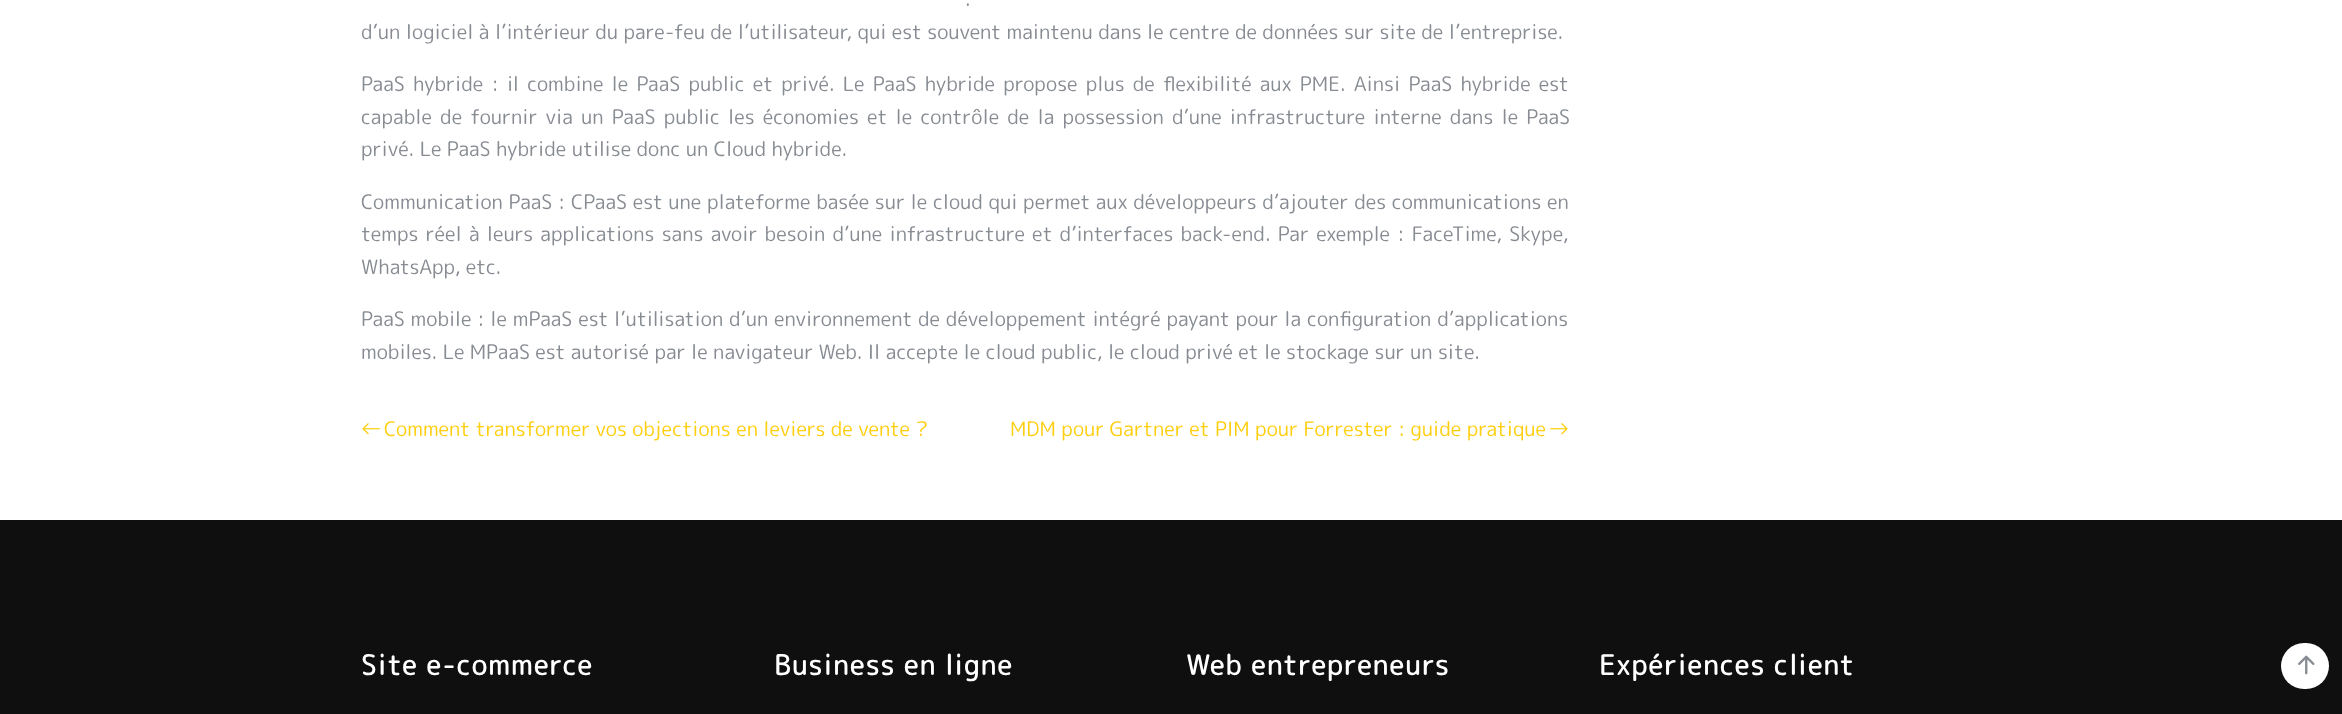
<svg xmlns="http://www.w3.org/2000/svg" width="2342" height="714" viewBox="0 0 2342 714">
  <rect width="100%" height="100%" fill="rgb(255,255,255)"/>
  <g font-family="'Rounded Mplus 1c'" font-size="20" fill="rgb(135,139,146)">
    <text x="965" y="6" word-spacing="1">.</text>
    <text x="361" y="39">d’un logiciel à l’intérieur du pare-feu de l’utilisateur, qui est souvent maintenu dans le centre de données sur site de l’entreprise.</text>
    <text>
      <tspan x="361" y="91" word-spacing="2.8">PaaS hybride : il combine le PaaS public et privé. Le PaaS hybride propose plus de flexibilité aux PME. Ainsi PaaS hybride est</tspan>
      <tspan x="361" y="124" word-spacing="2.75">capable de fournir via un PaaS public les économies et le contrôle de la possession d’une infrastructure interne dans le PaaS</tspan>
      <tspan x="361" y="156">privé. Le PaaS hybride utilise donc un Cloud hybride.</tspan>
    </text>
    <text>
      <tspan x="361" y="209" word-spacing="0.25">Communication PaaS : CPaaS est une plateforme basée sur le cloud qui permet aux développeurs d’ajouter des communications en</tspan>
      <tspan x="361" y="241" word-spacing="1.75">temps réel à leurs applications sans avoir besoin d’une infrastructure et d’interfaces back-end. Par exemple : FaceTime, Skype,</tspan>
      <tspan x="361" y="274">WhatsApp, etc.</tspan>
    </text>
    <text>
      <tspan x="361" y="326" word-spacing="0.4">PaaS mobile : le mPaaS est l’utilisation d’un environnement de développement intégré payant pour la configuration d’applications</tspan>
      <tspan x="361" y="359">mobiles. Le MPaaS est autorisé par le navigateur Web. Il accepte le cloud public, le cloud privé et le stockage sur un site.</tspan>
    </text>
  </g>
  <image x="362" y="423" width="18" height="12" href="pic1.png"/>
  <g font-family="'Rounded Mplus 1c'" font-size="20" fill="rgb(255,206,14)">
    <text x="384" y="436">Comment transformer vos objections en leviers de vente ?</text>
    <text x="1010" y="436">MDM pour Gartner et PIM pour Forrester : guide pratique</text>
  </g>
  <image x="1550" y="423" width="18" height="12" href="pic2.png"/>
  <rect x="0" y="520" width="2342" height="194" fill="rgb(15,15,15)"/>
  <g font-family="'Rounded Mplus 1c'" font-size="27.5" font-weight="bold" letter-spacing="1.25" fill="rgb(255,255,255)">
    <text x="361" y="675">Site e-commerce</text>
    <text x="774" y="675">Business en ligne</text>
    <text x="1186" y="675">Web entrepreneurs</text>
    <text x="1599" y="675">Expériences client</text>
  </g>
  <rect x="2281" y="643" width="48" height="46" rx="23" fill="rgb(255,255,255)"/>
  <image x="2298" y="655" width="17" height="20" href="pic3.png"/>
</svg>
